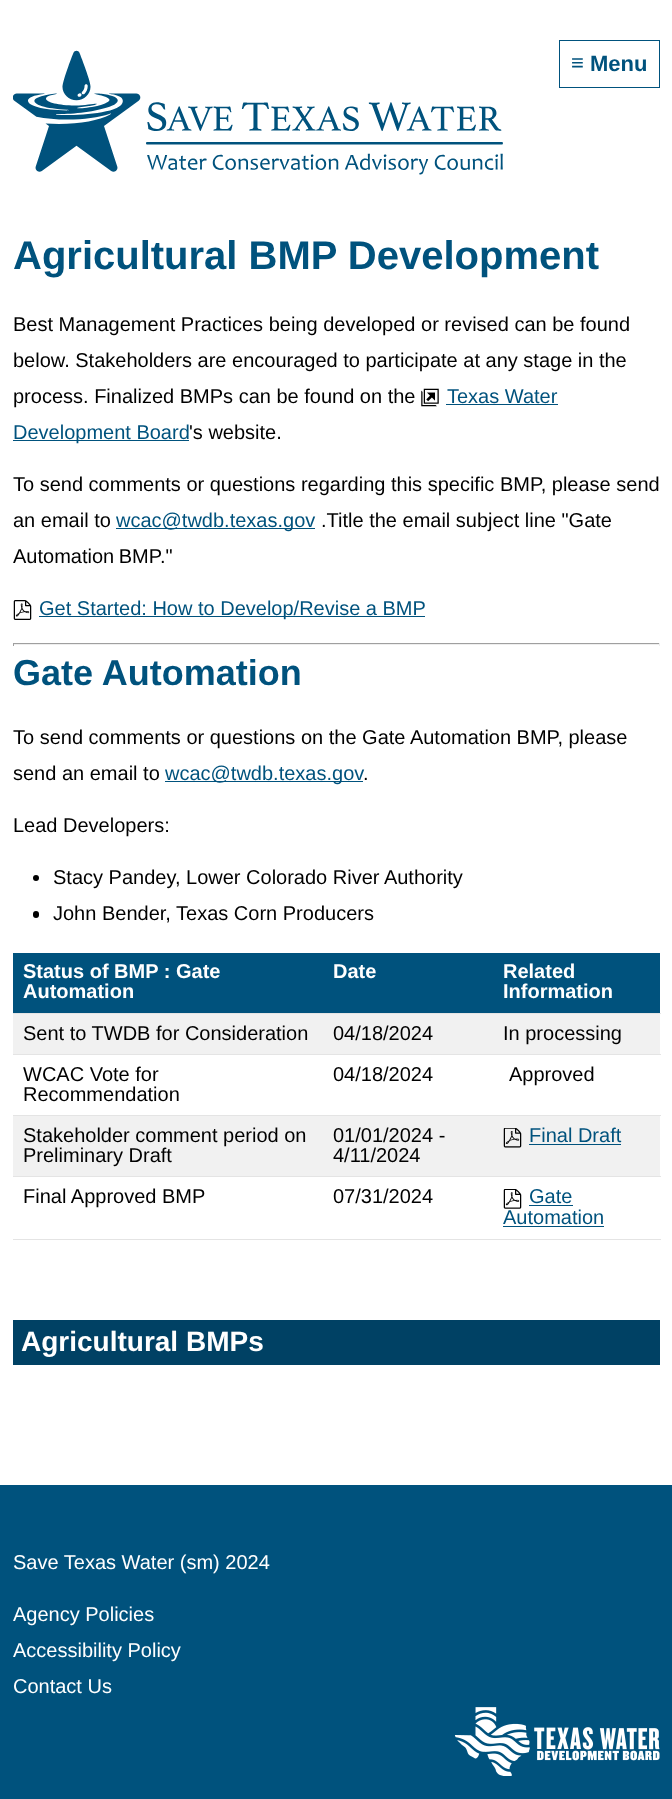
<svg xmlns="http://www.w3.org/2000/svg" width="672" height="1799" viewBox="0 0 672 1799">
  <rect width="100%" height="100%" fill="rgb(255,255,255)"/>
  <image x="13" y="50" width="490" height="125" href="pic1.png"/>
  <rect x="559.5" y="40.5" width="100" height="47" fill="none" stroke="rgb(0,82,125)"/>
  <g font-family="Liberation Sans" font-size="22" font-weight="bold" fill="rgb(0,82,125)">
    <text x="571" y="70">≡</text>
    <text x="590" y="71">Menu</text>
  </g>
  <text x="13" y="269" font-family="Liberation Sans" font-size="40" font-weight="bold" fill="rgb(0,82,125)">Agricultural BMP Development</text>
  <g font-family="Liberation Sans" font-size="20" fill="rgb(0,0,0)">
    <text>
      <tspan x="13" y="331">Best Management Practices being developed or revised can be found</tspan>
      <tspan x="13" y="367">below. Stakeholders are encouraged to participate at any stage in the</tspan>
      <tspan x="13" y="403">process. Finalized BMPs can be found on the</tspan>
    </text>
  </g>
  <image x="421" y="388" width="18" height="19" href="pic2.png"/>
  <text x="447" y="403" font-family="Liberation Sans" font-size="20" fill="rgb(0,82,125)">Texas Water</text>
  <rect x="446" y="404" width="112" height="1" fill="rgb(0,82,125)"/>
  <rect x="13" y="440" width="176" height="1" fill="rgb(0,82,125)"/>
  <text x="13" y="439" font-family="Liberation Sans" font-size="20" fill="rgb(0,82,125)">Development Board</text>
  <g font-family="Liberation Sans" font-size="20" fill="rgb(0,0,0)">
    <text x="189" y="439">'s website.</text>
    <text>
      <tspan x="13" y="491">To send comments or questions regarding this specific BMP, please send</tspan>
      <tspan x="13" y="527">an email to</tspan>
    </text>
  </g>
  <rect x="116" y="528" width="199" height="1" fill="rgb(0,82,125)"/>
  <text x="116" y="527" font-family="Liberation Sans" font-size="20" fill="rgb(0,82,125)">wcac@twdb.texas.gov</text>
  <g font-family="Liberation Sans" font-size="20" fill="rgb(0,0,0)">
    <text x="321" y="527">.Title the email subject line "Gate</text>
    <text x="13" y="563" word-spacing="-1">Automation BMP</text>
    <text x="160" y="563">."</text>
  </g>
  <image x="13" y="600" width="19" height="20" href="pic3.png"/>
  <rect x="39" y="616" width="386" height="1" fill="rgb(0,82,125)"/>
  <text x="39" y="615" font-family="Liberation Sans" font-size="20" fill="rgb(0,82,125)">Get Started: How to Develop/Revise a BMP</text>
  <rect x="13" y="643" width="647" height="1" fill="rgb(159,159,159)"/>
  <rect x="659" y="643" width="1" height="3" fill="rgb(238,238,238)"/>
  <rect x="13" y="644" width="647" height="1" fill="rgb(238,238,238)"/>
  <rect x="13" y="643" width="1" height="3" fill="rgb(159,159,159)"/>
  <text x="13" y="685" font-family="Liberation Sans" font-size="36" font-weight="bold" fill="rgb(0,82,125)">Gate Automation</text>
  <g font-family="Liberation Sans" font-size="20" fill="rgb(0,0,0)">
    <text>
      <tspan x="13" y="744">To send comments or questions on the Gate Automation BMP, please</tspan>
      <tspan x="13" y="780">send an email to</tspan>
    </text>
  </g>
  <rect x="165" y="781" width="198" height="1" fill="rgb(0,82,125)"/>
  <text x="165" y="780" font-family="Liberation Sans" font-size="20" fill="rgb(0,82,125)">wcac@twdb.texas.gov</text>
  <g font-family="Liberation Sans" font-size="20" fill="rgb(0,0,0)">
    <text x="363" y="780">.</text>
    <text x="13" y="832">Lead Developers:</text>
  </g>
  <circle cx="36" cy="878" r="3" fill="rgb(0,0,0)"/>
  <text x="53" y="884" font-family="Liberation Sans" font-size="20" fill="rgb(0,0,0)">Stacy Pandey, Lower Colorado River Authority</text>
  <rect x="33" y="911" width="6" height="7" rx="3" fill="rgb(0,0,0)"/>
  <text x="53" y="920" font-family="Liberation Sans" font-size="20" fill="rgb(0,0,0)">John Bender, Texas Corn Producers</text>
  <rect x="13" y="1013" width="648" height="1" fill="rgb(228,228,228)"/>
  <rect x="13" y="953" width="647" height="60" fill="rgb(0,82,125)"/>
  <g font-family="Liberation Sans" font-size="20" font-weight="bold" fill="rgb(255,255,255)">
    <text>
      <tspan x="23" y="978">Status of BMP : Gate</tspan>
      <tspan x="23" y="998">Automation</tspan>
    </text>
    <text x="333" y="978">Date</text>
    <text>
      <tspan x="503" y="978">Related</tspan>
      <tspan x="503" y="998">Information</tspan>
    </text>
  </g>
  <rect x="13" y="1014" width="647" height="40" fill="rgb(241,241,241)"/>
  <rect x="13" y="1054" width="648" height="1" fill="rgb(228,228,228)"/>
  <g font-family="Liberation Sans" font-size="20" fill="rgb(0,0,0)">
    <text x="23" y="1040">Sent to TWDB for Consideration</text>
    <text x="333" y="1040">04/18/2024</text>
    <text x="503" y="1040">In processing</text>
  </g>
  <rect x="13" y="1115" width="648" height="1" fill="rgb(228,228,228)"/>
  <g font-family="Liberation Sans" font-size="20" fill="rgb(0,0,0)">
    <text>
      <tspan x="23" y="1081">WCAC Vote for</tspan>
      <tspan x="23" y="1101">Recommendation</tspan>
    </text>
    <text x="333" y="1081">04/18/2024</text>
    <text x="509" y="1081">Approved</text>
  </g>
  <rect x="13" y="1116" width="647" height="60" fill="rgb(241,241,241)"/>
  <rect x="13" y="1176" width="648" height="1" fill="rgb(228,228,228)"/>
  <g font-family="Liberation Sans" font-size="20" fill="rgb(0,0,0)">
    <text>
      <tspan x="23" y="1142">Stakeholder comment period on</tspan>
      <tspan x="23" y="1162">Preliminary Draft</tspan>
    </text>
    <text>
      <tspan x="333" y="1142">01/01/2024 -</tspan>
      <tspan x="333" y="1162">4/11/2024</tspan>
    </text>
  </g>
  <image x="503" y="1128" width="19" height="20" href="pic4.png"/>
  <text x="529" y="1142" font-family="Liberation Sans" font-size="20" fill="rgb(0,82,125)">Final Draft</text>
  <rect x="529" y="1144" width="92" height="1" fill="rgb(0,82,125)"/>
  <rect x="13" y="1239" width="648" height="1" fill="rgb(228,228,228)"/>
  <g font-family="Liberation Sans" font-size="20" fill="rgb(0,0,0)">
    <text x="23" y="1203">Final Approved BMP</text>
    <text x="333" y="1203">07/31/2024</text>
  </g>
  <image x="503" y="1189" width="19" height="20" href="pic5.png"/>
  <text x="529" y="1203" font-family="Liberation Sans" font-size="20" fill="rgb(0,82,125)">Gate</text>
  <rect x="529" y="1205" width="44" height="1" fill="rgb(0,82,125)"/>
  <text x="503" y="1224" font-family="Liberation Sans" font-size="20" fill="rgb(0,82,125)">Automation</text>
  <rect x="503" y="1226" width="101" height="1" fill="rgb(0,82,125)"/>
  <rect x="13" y="1320" width="647" height="45" fill="rgb(0,65,100)"/>
  <text x="21" y="1351" font-family="Liberation Sans" font-size="28" font-weight="bold" fill="rgb(255,255,255)">Agricultural BMPs</text>
  <rect x="0" y="1485" width="672" height="314" fill="rgb(0,82,125)"/>
  <g font-family="Liberation Sans" font-size="20" fill="rgb(255,255,255)">
    <text x="13" y="1569">Save Texas Water (sm) 2024</text>
    <text>
      <tspan x="13" y="1621">Agency Policies</tspan>
      <tspan x="13" y="1657">Accessibility Policy</tspan>
      <tspan x="13" y="1693">Contact Us</tspan>
    </text>
  </g>
  <image x="454" y="1707" width="206" height="69" href="pic6.png"/>
</svg>
